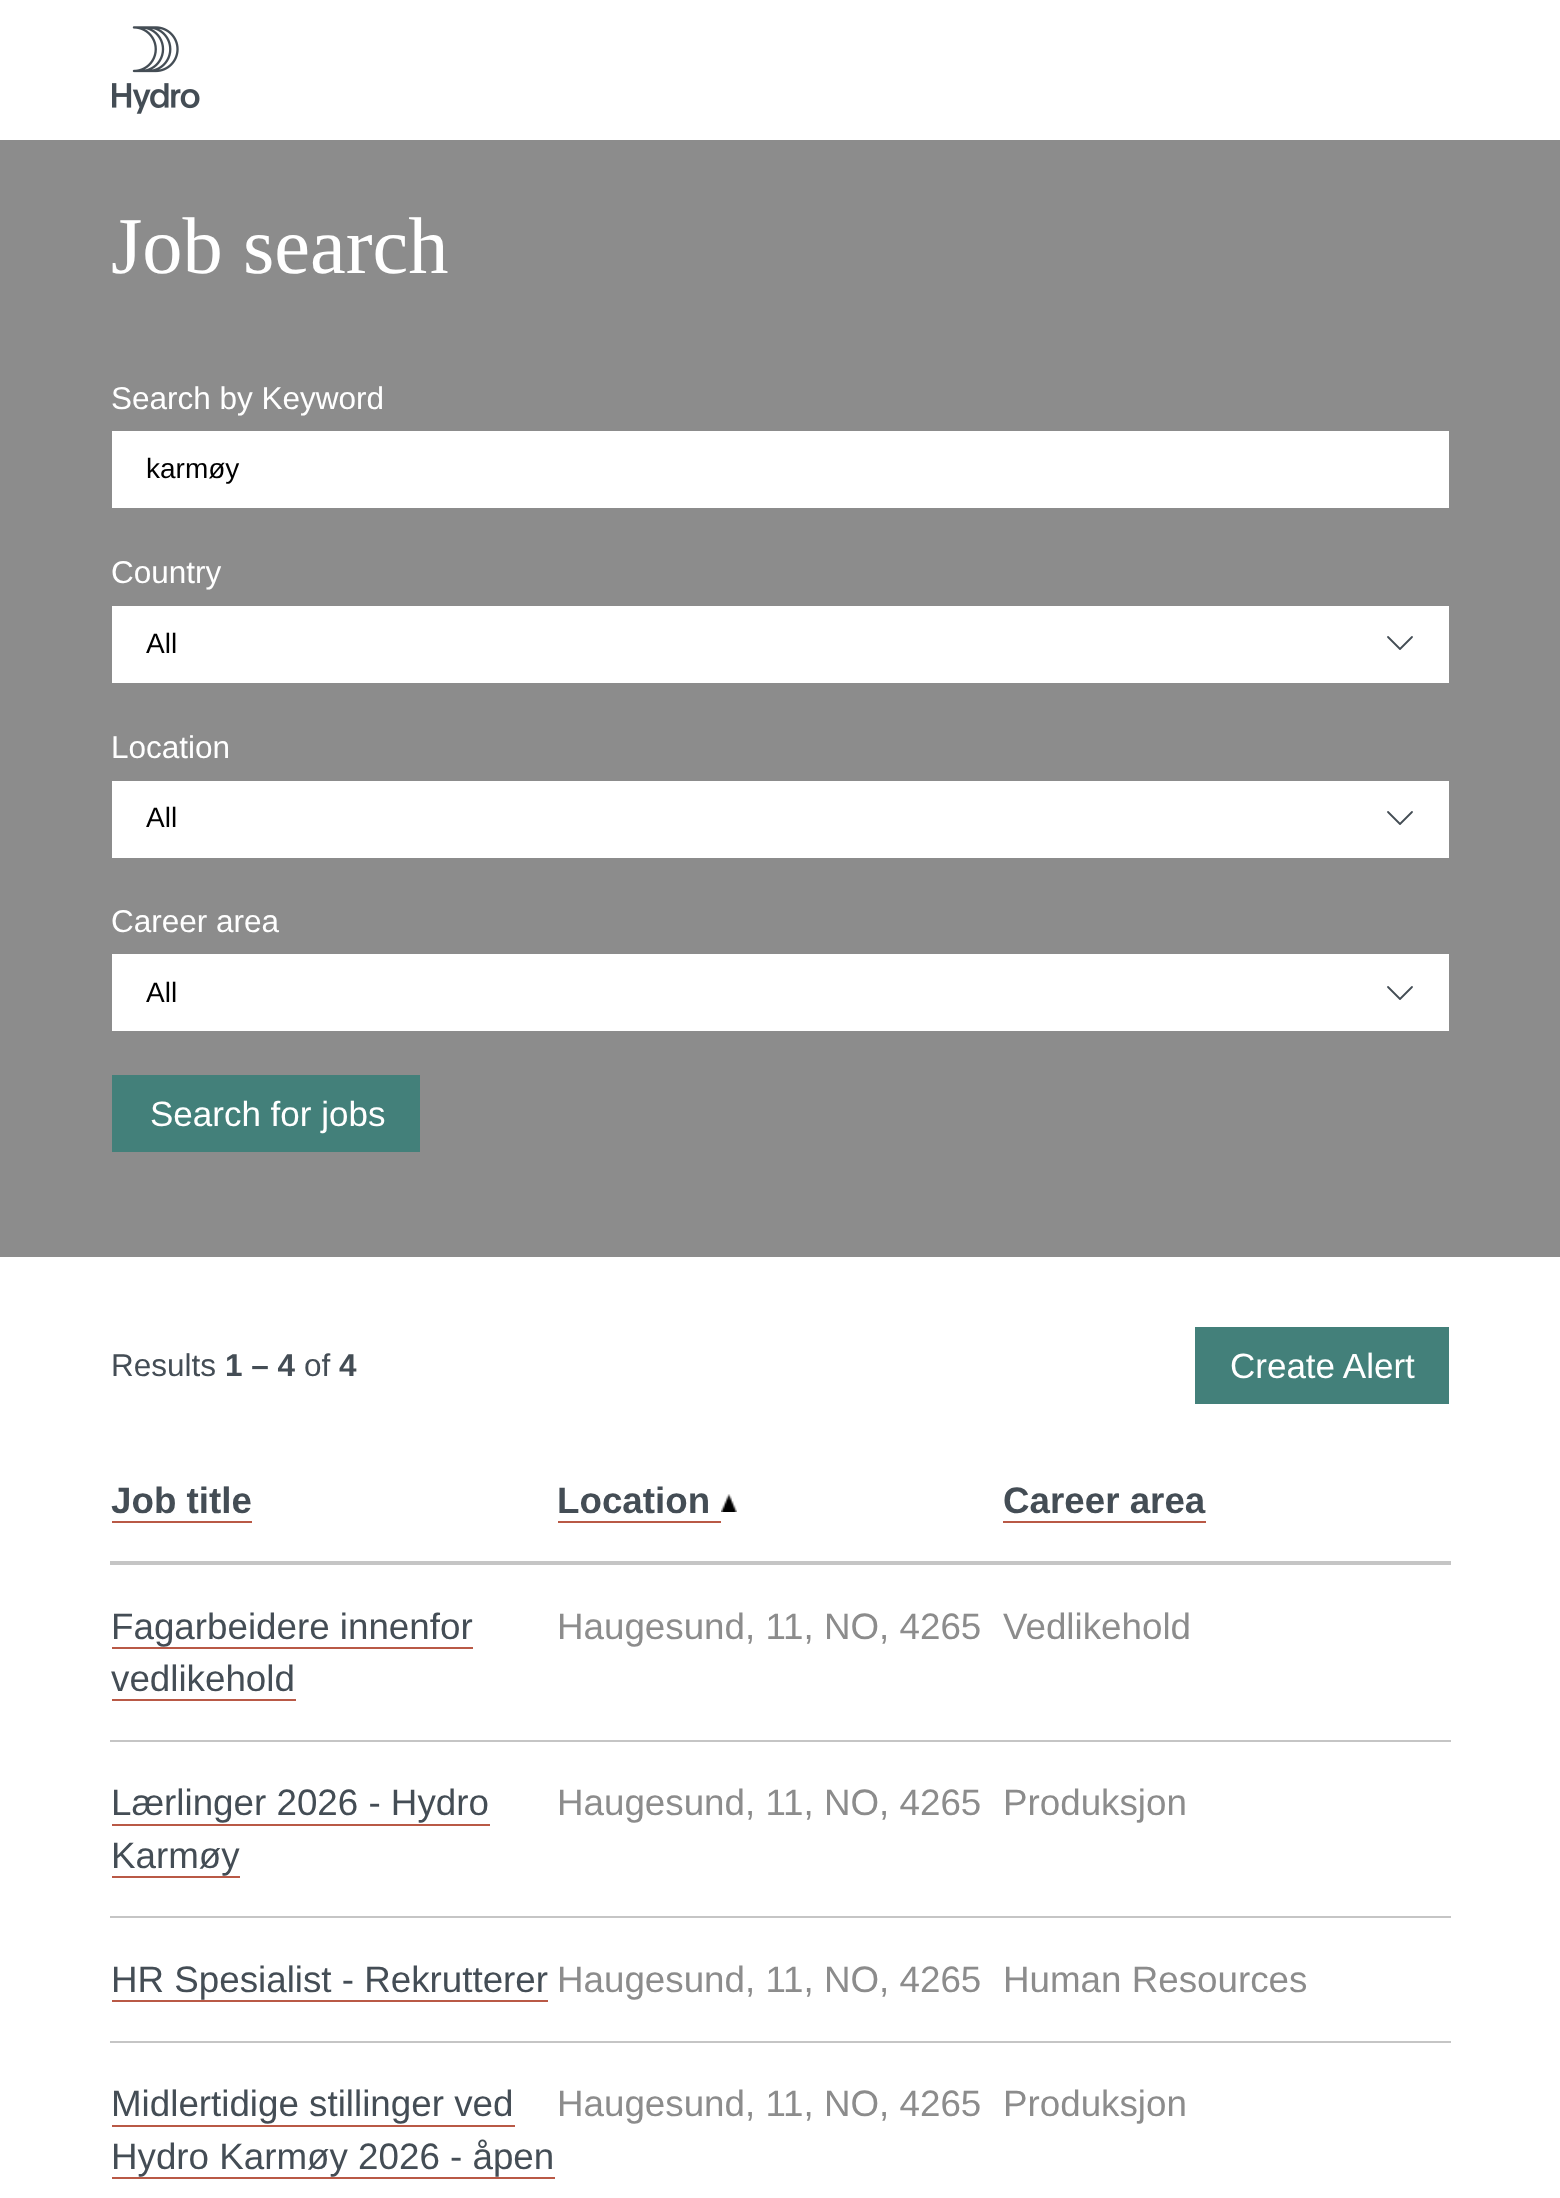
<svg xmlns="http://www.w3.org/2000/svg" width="1560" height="2198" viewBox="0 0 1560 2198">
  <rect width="100%" height="100%" fill="rgb(255,255,255)"/>
  <image x="112" y="26" width="88" height="88" href="pic1.png"/>
  <rect x="0" y="140" width="1560" height="1117" fill="rgb(140,140,140)"/>
  <text x="111" y="273" font-family="Liberation Serif" font-size="80.5" fill="rgb(255,255,255)">Job search</text>
  <text x="111" y="409" font-family="Liberation Sans" font-size="31.5" fill="rgb(255,255,255)">Search by Keyword</text>
  <rect x="112" y="431" width="1337" height="77" fill="rgb(255,255,255)"/>
  <text x="146" y="478" font-family="Liberation Sans" font-size="28" fill="rgb(0,0,0)">karmøy</text>
  <text x="111" y="583" font-family="Liberation Sans" font-size="31.5" fill="rgb(255,255,255)">Country</text>
  <rect x="112" y="606" width="1337" height="77" fill="rgb(255,255,255)"/>
  <path d="M1400 649L1412 637M1400 649L1388 637" fill="none" stroke="rgb(68,77,85)" stroke-width="1.8" stroke-linecap="round"/>
  <text x="146" y="653" font-family="Liberation Sans" font-size="28" fill="rgb(0,0,0)">All</text>
  <text x="111" y="758" font-family="Liberation Sans" font-size="31.5" fill="rgb(255,255,255)">Location</text>
  <rect x="112" y="781" width="1337" height="77" fill="rgb(255,255,255)"/>
  <path d="M1400 824L1412 812M1400 824L1388 812" fill="none" stroke="rgb(68,77,85)" stroke-width="1.8" stroke-linecap="round"/>
  <text x="146" y="827" font-family="Liberation Sans" font-size="28" fill="rgb(0,0,0)">All</text>
  <text x="111" y="932" font-family="Liberation Sans" font-size="31.5" fill="rgb(255,255,255)">Career area</text>
  <rect x="112" y="954" width="1337" height="77" fill="rgb(255,255,255)"/>
  <path d="M1400 999L1412 987M1400 999L1388 987" fill="none" stroke="rgb(68,77,85)" stroke-width="1.8" stroke-linecap="round"/>
  <text x="146" y="1002" font-family="Liberation Sans" font-size="28" fill="rgb(0,0,0)">All</text>
  <rect x="112" y="1075" width="308" height="77" fill="rgb(67,128,122)"/>
  <text x="150" y="1126" font-family="Liberation Sans" font-size="35" fill="rgb(255,255,255)">Search for jobs</text>
  <text x="111" y="1376" font-family="Liberation Sans" font-size="31.5" fill="rgb(68,77,85)">Results</text>
  <text x="225" y="1376" font-family="Liberation Sans" font-size="31.5" font-weight="bold" fill="rgb(68,77,85)">1 – 4</text>
  <text x="304" y="1376" font-family="Liberation Sans" font-size="31.5" fill="rgb(68,77,85)">of</text>
  <text x="339" y="1376" font-family="Liberation Sans" font-size="31.5" font-weight="bold" fill="rgb(68,77,85)">4</text>
  <rect x="1195" y="1327" width="254" height="77" fill="rgb(67,128,122)"/>
  <text x="1230" y="1378" font-family="Liberation Sans" font-size="35" fill="rgb(255,255,255)">Create Alert</text>
  <text x="111" y="1513" font-family="Liberation Sans" font-size="36.75" font-weight="bold" fill="rgb(68,77,85)">Job title</text>
  <rect x="112" y="1521" width="140" height="2" fill="rgb(185,89,70)"/>
  <text x="557" y="1513" font-family="Liberation Sans" font-size="36.75" font-weight="bold" fill="rgb(68,77,85)">Location</text>
  <rect x="558" y="1521" width="163" height="2" fill="rgb(185,89,70)"/>
  <image x="721" y="1494" width="16" height="18" href="pic2.png"/>
  <rect x="110" y="1561" width="1341" height="4" fill="rgb(197,197,197)"/>
  <text x="1003" y="1513" font-family="Liberation Sans" font-size="36.75" font-weight="bold" fill="rgb(68,77,85)">Career area</text>
  <rect x="1003" y="1521" width="203" height="2" fill="rgb(185,89,70)"/>
  <text x="111" y="1639" font-family="Liberation Sans" font-size="36.75" fill="rgb(68,77,85)">Fagarbeidere innenfor</text>
  <rect x="112" y="1647" width="361" height="2" fill="rgb(185,89,70)"/>
  <text x="111" y="1691" font-family="Liberation Sans" font-size="36.75" fill="rgb(68,77,85)">vedlikehold</text>
  <rect x="112" y="1699" width="184" height="2" fill="rgb(185,89,70)"/>
  <text x="557" y="1639" font-family="Liberation Sans" font-size="36.75" fill="rgb(140,140,140)">Haugesund, 11, NO, 4265</text>
  <rect x="110" y="1740" width="1341" height="2" fill="rgb(197,197,197)"/>
  <text x="1003" y="1639" font-family="Liberation Sans" font-size="36.75" fill="rgb(140,140,140)">Vedlikehold</text>
  <text x="111" y="1815" font-family="Liberation Sans" font-size="36.75" fill="rgb(68,77,85)">Lærlinger 2026 - Hydro</text>
  <rect x="112" y="1824" width="378" height="2" fill="rgb(185,89,70)"/>
  <text x="111" y="1868" font-family="Liberation Sans" font-size="36.75" fill="rgb(68,77,85)">Karmøy</text>
  <rect x="112" y="1876" width="128" height="2" fill="rgb(185,89,70)"/>
  <text x="557" y="1815" font-family="Liberation Sans" font-size="36.75" fill="rgb(140,140,140)">Haugesund, 11, NO, 4265</text>
  <rect x="110" y="1916" width="1341" height="2" fill="rgb(197,197,197)"/>
  <text x="1003" y="1815" font-family="Liberation Sans" font-size="36.75" fill="rgb(140,140,140)">Produksjon</text>
  <text x="111" y="1992" font-family="Liberation Sans" font-size="36.75" fill="rgb(68,77,85)">HR Spesialist - Rekrutterer</text>
  <rect x="112" y="2000" width="436" height="2" fill="rgb(185,89,70)"/>
  <text x="557" y="1992" font-family="Liberation Sans" font-size="36.75" fill="rgb(140,140,140)">Haugesund, 11, NO, 4265</text>
  <rect x="110" y="2041" width="1341" height="2" fill="rgb(197,197,197)"/>
  <text x="1003" y="1992" font-family="Liberation Sans" font-size="36.75" fill="rgb(140,140,140)">Human Resources</text>
  <text x="111" y="2116" font-family="Liberation Sans" font-size="36.75" fill="rgb(68,77,85)">Midlertidige stillinger ved</text>
  <rect x="112" y="2125" width="403" height="2" fill="rgb(185,89,70)"/>
  <text x="111" y="2169" font-family="Liberation Sans" font-size="36.75" fill="rgb(68,77,85)">Hydro Karmøy 2026 - åpen</text>
  <rect x="112" y="2177" width="443" height="2" fill="rgb(185,89,70)"/>
  <g font-family="Liberation Sans" font-size="36.75" fill="rgb(140,140,140)">
    <text x="557" y="2116">Haugesund, 11, NO, 4265</text>
    <text x="1003" y="2116">Produksjon</text>
  </g>
</svg>
